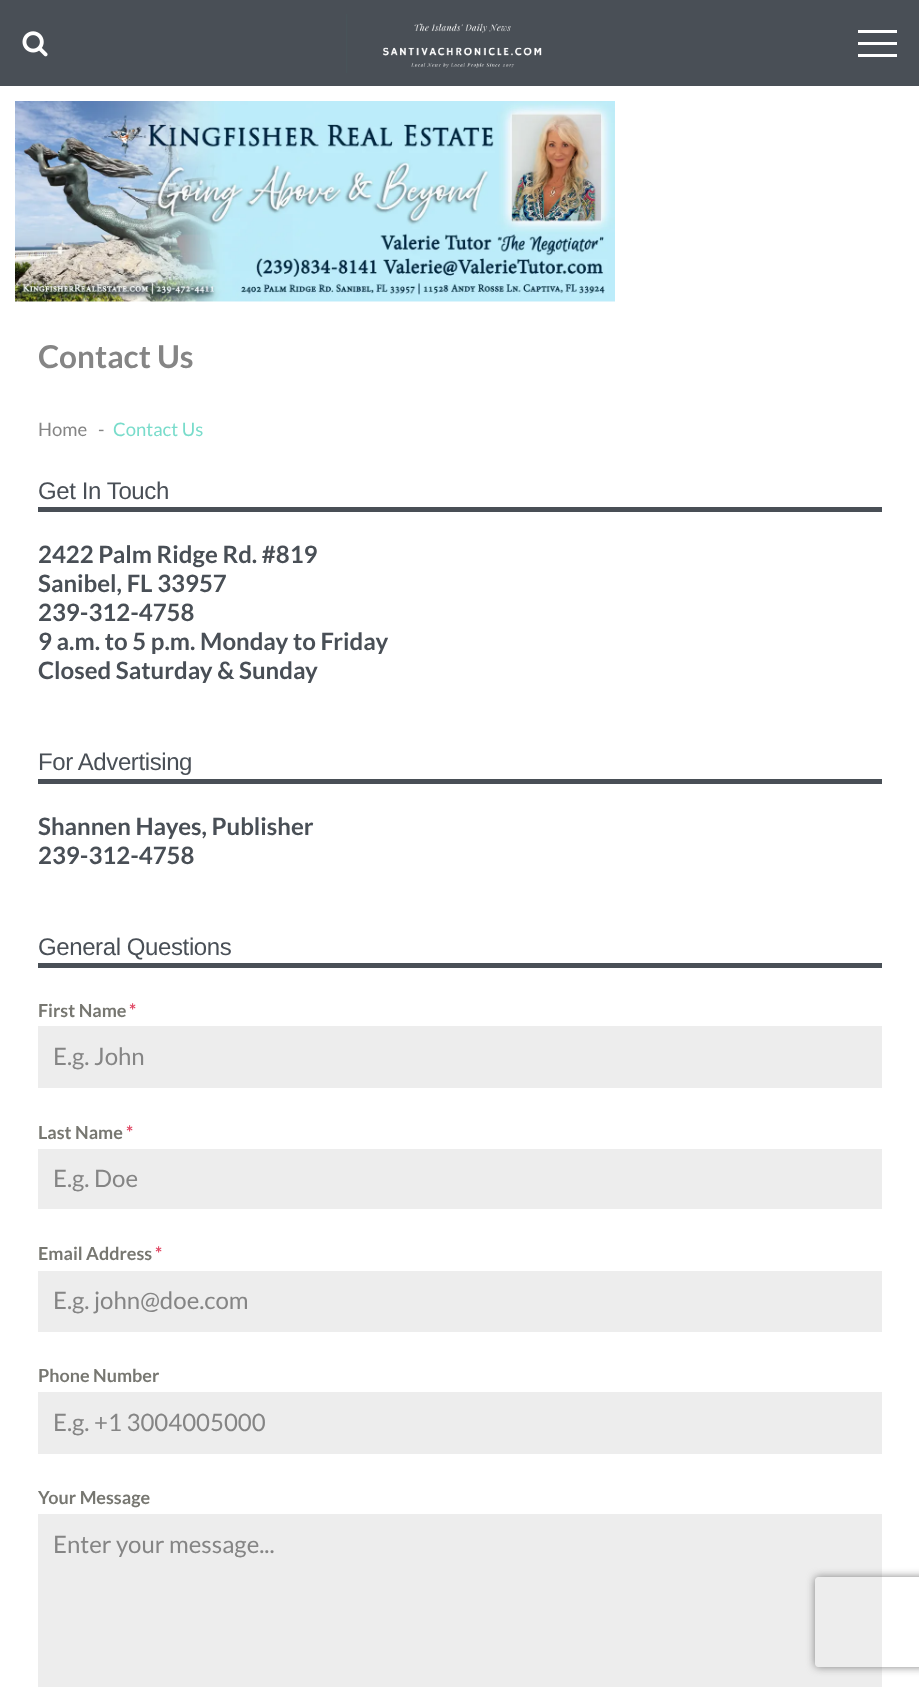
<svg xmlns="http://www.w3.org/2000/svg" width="919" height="1687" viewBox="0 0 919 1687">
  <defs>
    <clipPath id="clip1"><path d="M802 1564H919V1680H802ZM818 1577H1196C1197.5 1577 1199 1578.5 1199 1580V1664C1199 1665.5 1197.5 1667 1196 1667H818C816.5 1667 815 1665.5 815 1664V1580C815 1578.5 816.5 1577 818 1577Z" clip-rule="evenodd"/></clipPath>
  </defs>
  <rect width="100%" height="100%" fill="rgb(255,255,255)"/>
  <rect x="0" y="0" width="919" height="86" fill="rgb(73,79,86)"/>
  <image x="22" y="31" width="26" height="26" href="pic1.png"/>
  <image x="346" y="14" width="196" height="59" href="pic2.png"/>
  <rect x="858" y="42" width="39" height="3" fill="rgb(255,255,255)"/>
  <rect x="858" y="30" width="39" height="3" fill="rgb(255,255,255)"/>
  <rect x="858" y="54" width="39" height="3" fill="rgb(255,255,255)"/>
  <image x="15" y="101" width="600" height="201" href="pic3.png"/>
  <text x="38" y="368" font-family="Lato" font-size="31.5" font-weight="bold" fill="rgb(133,133,133)">Contact Us</text>
  <g font-family="Lato" font-size="18.5" fill="rgb(133,133,133)">
    <text x="38" y="436">Home</text>
    <text x="98" y="436">-</text>
  </g>
  <text x="113" y="436" font-family="Lato" font-size="18.5" fill="rgb(121,220,203)">Contact Us</text>
  <text x="38" y="499" font-family="Liberation Sans" font-size="24" letter-spacing="-0.4" fill="rgb(73,79,86)">Get In Touch</text>
  <rect x="38" y="507" width="844" height="5" fill="rgb(73,79,86)"/>
  <g font-family="Lato" font-size="24" font-weight="bold" fill="rgb(73,79,86)">
    <text>
      <tspan x="38" y="563">2422 Palm Ridge Rd. #819</tspan>
      <tspan x="38" y="592">Sanibel, FL 33957</tspan>
      <tspan x="38" y="621">239-312-4758</tspan>
      <tspan x="38" y="650">9 a.m. to 5 p.m. Monday to Friday</tspan>
      <tspan x="38" y="679">Closed Saturday &amp; Sunday</tspan>
    </text>
  </g>
  <text x="38" y="770" font-family="Liberation Sans" font-size="24" letter-spacing="-0.4" fill="rgb(73,79,86)">For Advertising</text>
  <rect x="38" y="779" width="844" height="5" fill="rgb(73,79,86)"/>
  <g font-family="Lato" font-size="24" font-weight="bold" fill="rgb(73,79,86)">
    <text>
      <tspan x="38" y="835">Shannen Hayes, Publisher</tspan>
      <tspan x="38" y="864">239-312-4758</tspan>
    </text>
  </g>
  <text x="38" y="955" font-family="Liberation Sans" font-size="24" letter-spacing="-0.4" fill="rgb(73,79,86)">General Questions</text>
  <rect x="38" y="963" width="844" height="5" fill="rgb(73,79,86)"/>
  <text x="38" y="1017" font-family="Lato" font-size="18" font-weight="bold" fill="rgb(119,119,113)">First Name</text>
  <text x="129" y="1017" font-family="Lato" font-size="18" font-weight="bold" fill="rgb(224,69,98)">*</text>
  <rect x="38" y="1026" width="844" height="62" fill="rgb(237,237,237)"/>
  <text x="53" y="1065" font-family="Lato" font-size="24" fill="rgb(133,133,133)">E.g. John</text>
  <text x="38" y="1139" font-family="Lato" font-size="18" font-weight="bold" fill="rgb(119,119,113)">Last Name</text>
  <text x="126" y="1139" font-family="Lato" font-size="18" font-weight="bold" fill="rgb(224,69,98)">*</text>
  <rect x="38" y="1149" width="844" height="60" fill="rgb(237,237,237)"/>
  <text x="53" y="1187" font-family="Lato" font-size="24" fill="rgb(133,133,133)">E.g. Doe</text>
  <text x="38" y="1260" font-family="Lato" font-size="18" font-weight="bold" fill="rgb(119,119,113)">Email Address</text>
  <text x="155" y="1260" font-family="Lato" font-size="18" font-weight="bold" fill="rgb(224,69,98)">*</text>
  <rect x="38" y="1271" width="844" height="61" fill="rgb(237,237,237)"/>
  <text x="53" y="1309" font-family="Lato" font-size="24" fill="rgb(133,133,133)">E.g. john@doe.com</text>
  <text x="38" y="1382" font-family="Lato" font-size="18" font-weight="bold" fill="rgb(119,119,113)">Phone Number</text>
  <rect x="38" y="1392" width="844" height="62" fill="rgb(237,237,237)"/>
  <text x="53" y="1431" font-family="Lato" font-size="24" fill="rgb(133,133,133)">E.g. +1 3004005000</text>
  <text x="38" y="1504" font-family="Lato" font-size="18" font-weight="bold" fill="rgb(119,119,113)">Your Message</text>
  <rect x="38" y="1514" width="844" height="173" fill="rgb(237,237,237)"/>
  <text x="53" y="1553" font-family="Lato" font-size="24" fill="rgb(133,133,133)">Enter your message...</text>
  <g clip-path="url(#clip1)">
    <rect x="815" y="1577" width="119" height="90" rx="3" fill="rgb(128,128,128)" filter="blur(4px)"/>
  </g>
</svg>
